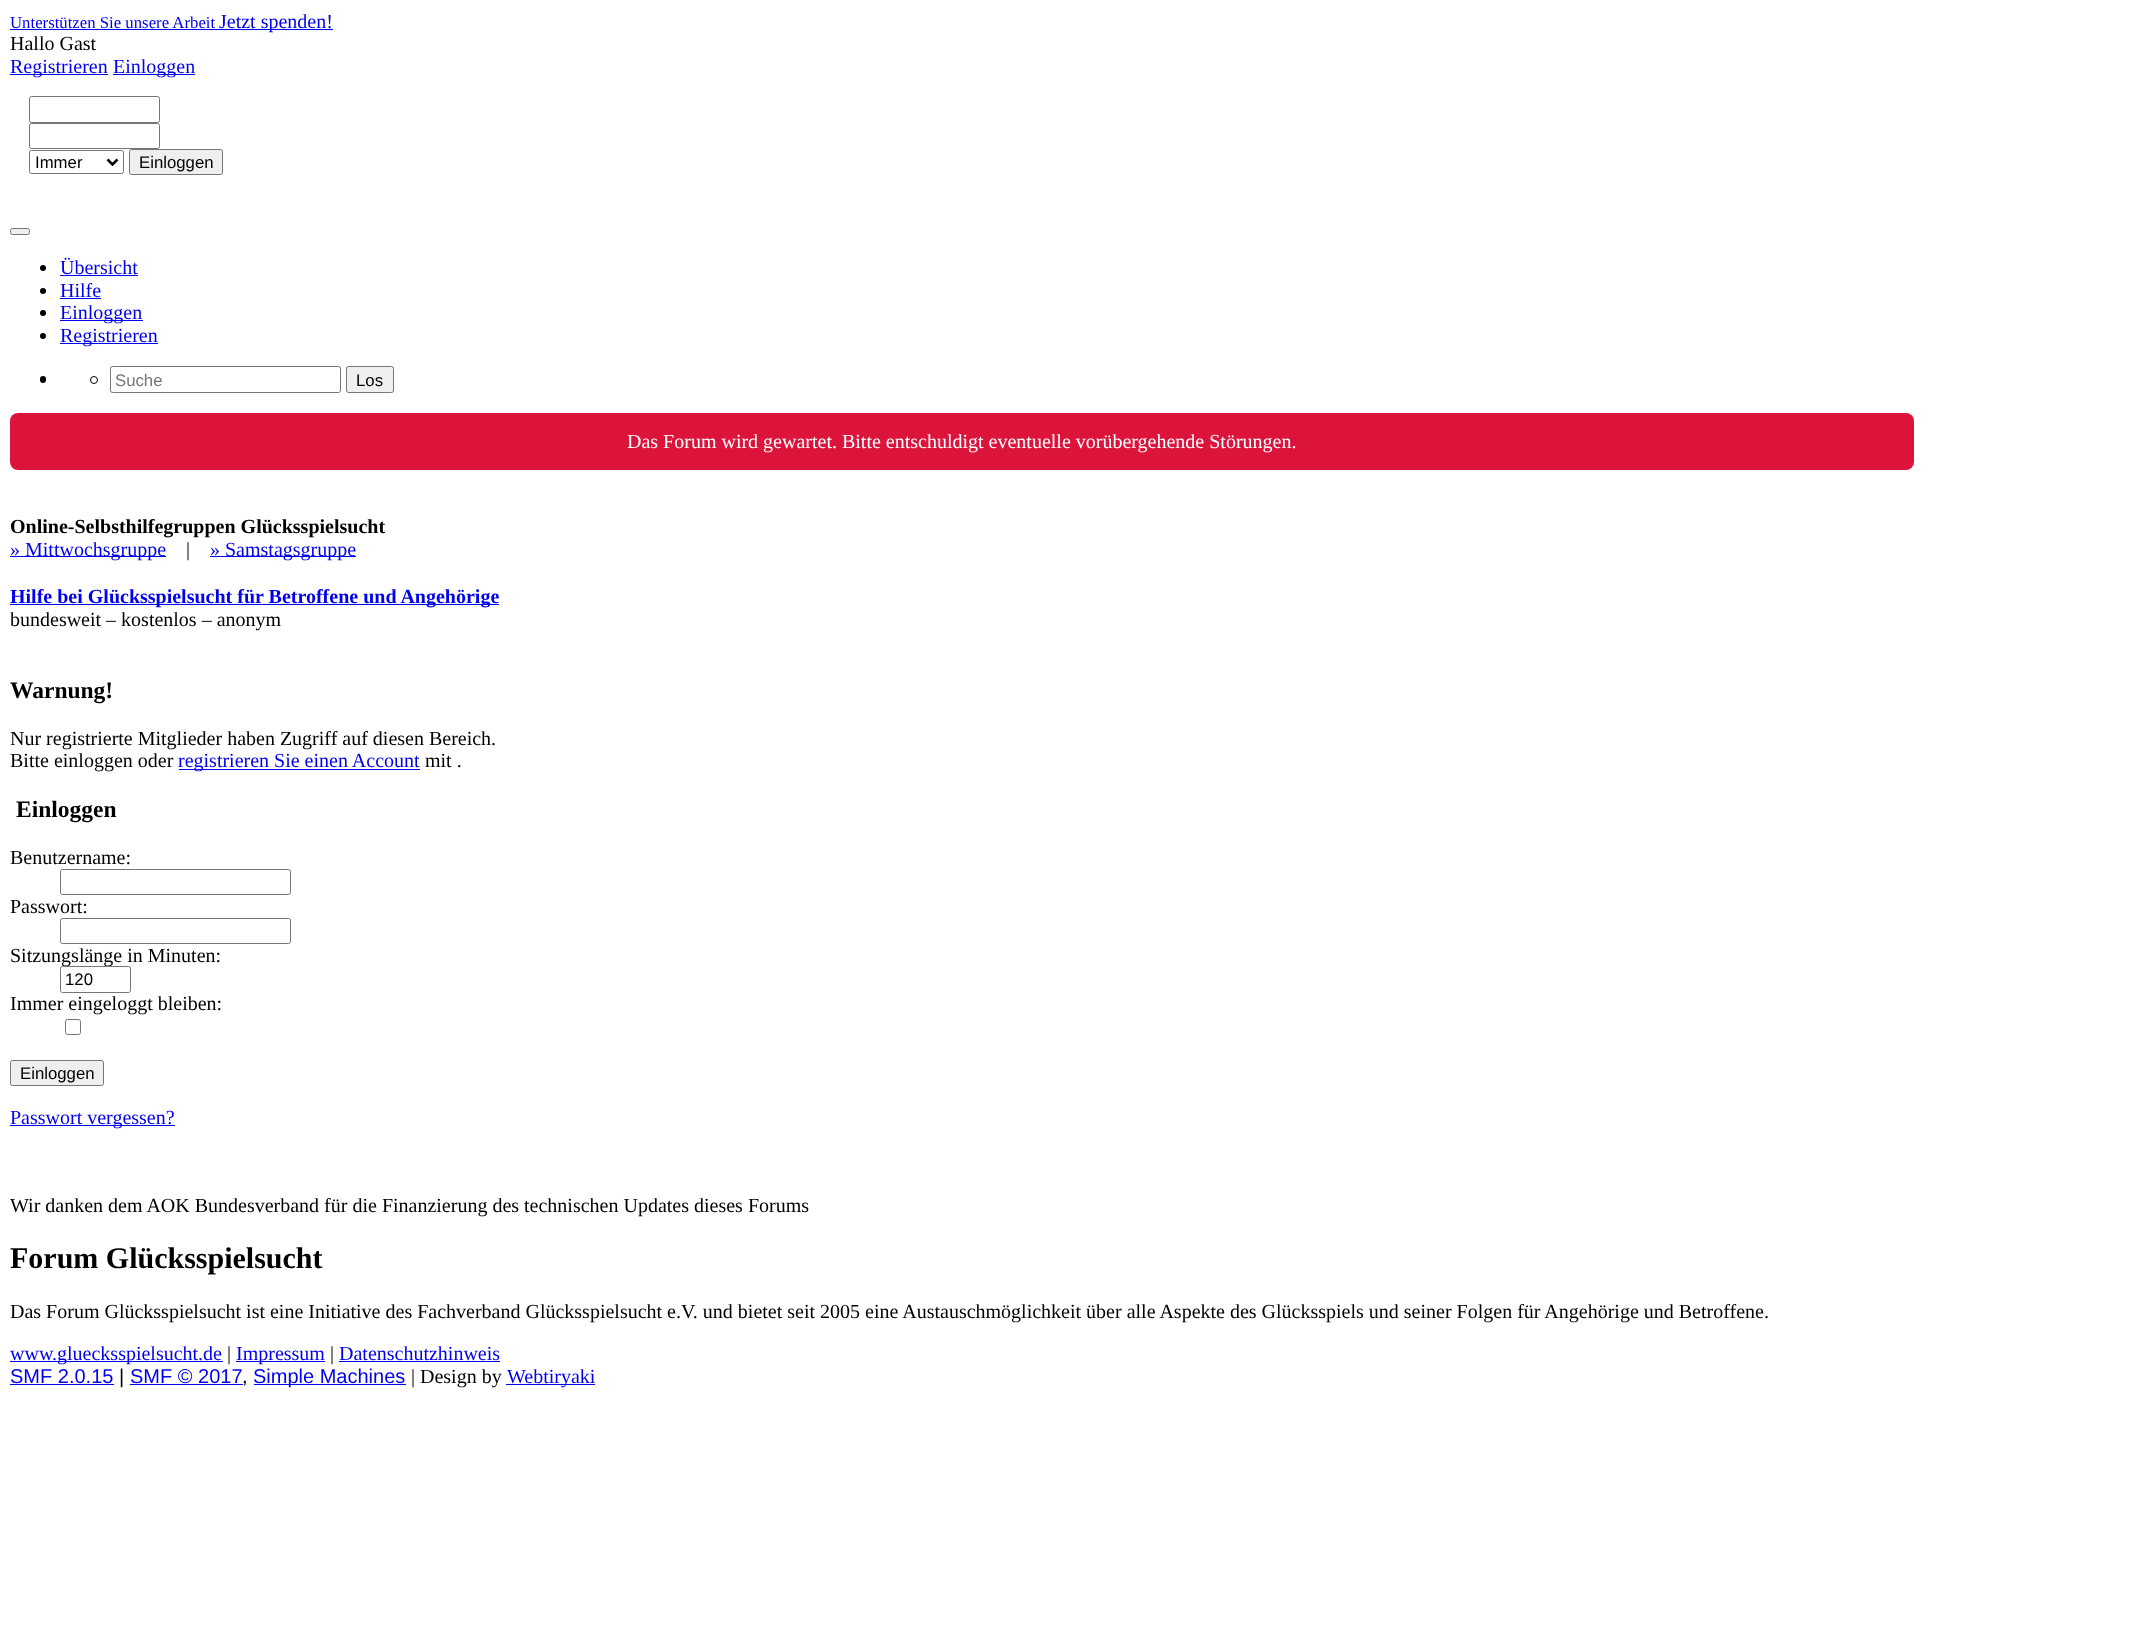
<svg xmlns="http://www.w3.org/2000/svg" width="2134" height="1638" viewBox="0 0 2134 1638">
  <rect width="100%" height="100%" fill="rgb(255,255,255)"/>
  <text x="10" y="28" font-family="Liberation Serif" font-size="16.75" fill="rgb(0,0,238)">Unterstützen Sie unsere Arbeit</text>
  <rect x="10" y="29" width="323" height="1" fill="rgb(0,0,238)"/>
  <text x="219" y="28" font-family="Liberation Serif" font-size="20" fill="rgb(0,0,238)">Jetzt spenden!</text>
  <text x="10" y="50" font-family="Liberation Serif" font-size="20" fill="rgb(0,0,0)">Hallo Gast</text>
  <rect x="10" y="74" width="98" height="1" fill="rgb(0,0,238)"/>
  <text x="10" y="73" font-family="Liberation Serif" font-size="20" fill="rgb(0,0,238)">Registrieren</text>
  <rect x="113" y="74" width="82" height="1" fill="rgb(0,0,238)"/>
  <text x="113" y="73" font-family="Liberation Serif" font-size="20" fill="rgb(0,0,238)">Einloggen</text>
  <rect x="29.5" y="96.5" width="130" height="26" rx="2" fill="none" stroke="rgb(118,118,118)"/>
  <rect x="29.5" y="123.5" width="130" height="25" rx="2" fill="none" stroke="rgb(118,118,118)"/>
  <rect x="29.5" y="150.5" width="94" height="23" rx="2" fill="none" stroke="rgb(118,118,118)"/>
  <path d="M107.5 159.5L112.5 164.5L117.5 159.5" fill="none" stroke="rgb(0,0,0)" stroke-width="2.5"/>
  <text x="35" y="168" font-family="Liberation Sans" font-size="16.75" fill="rgb(0,0,0)">Immer</text>
  <rect x="129.5" y="149.5" width="93" height="25" rx="2" fill="rgb(239,239,239)" stroke="rgb(118,118,118)"/>
  <text x="139" y="168" font-family="Liberation Sans" font-size="16.75" fill="rgb(0,0,0)">Einloggen</text>
  <rect x="10.5" y="228.5" width="19" height="6" rx="2" fill="rgb(239,239,239)" stroke="rgb(118,118,118)"/>
  <circle cx="43" cy="268" r="3" fill="rgb(0,0,0)"/>
  <text x="60" y="274" font-family="Liberation Serif" font-size="20" fill="rgb(0,0,238)">Übersicht</text>
  <rect x="60" y="275" width="78" height="1" fill="rgb(0,0,238)"/>
  <circle cx="43" cy="291" r="3" fill="rgb(0,0,0)"/>
  <text x="60" y="297" font-family="Liberation Serif" font-size="20" fill="rgb(0,0,238)">Hilfe</text>
  <rect x="60" y="298" width="41" height="1" fill="rgb(0,0,238)"/>
  <circle cx="43" cy="313" r="3" fill="rgb(0,0,0)"/>
  <rect x="60" y="320" width="83" height="1" fill="rgb(0,0,238)"/>
  <text x="60" y="319" font-family="Liberation Serif" font-size="20" fill="rgb(0,0,238)">Einloggen</text>
  <circle cx="43" cy="336" r="3" fill="rgb(0,0,0)"/>
  <rect x="60" y="343" width="98" height="1" fill="rgb(0,0,238)"/>
  <text x="60" y="342" font-family="Liberation Serif" font-size="20" fill="rgb(0,0,238)">Registrieren</text>
  <rect x="40" y="376" width="6" height="7" rx="3" fill="rgb(0,0,0)"/>
  <circle cx="94" cy="380" r="3.5" fill="none" stroke="rgb(0,0,0)"/>
  <rect x="110.5" y="366.5" width="230" height="26" rx="2" fill="none" stroke="rgb(118,118,118)"/>
  <text x="115" y="386" font-family="Liberation Sans" font-size="16.75" fill="rgb(117,117,117)">Suche</text>
  <rect x="346.5" y="366.5" width="47" height="26" rx="2" fill="rgb(239,239,239)" stroke="rgb(118,118,118)"/>
  <text x="356" y="386" font-family="Liberation Sans" font-size="16.75" fill="rgb(0,0,0)">Los</text>
  <rect x="10" y="413" width="1904" height="57" rx="8" fill="rgb(220,20,60)"/>
  <text x="627" y="448" font-family="Liberation Serif" font-size="20" fill="rgb(255,255,255)">Das Forum wird gewartet. Bitte entschuldigt eventuelle vorübergehende Störungen.</text>
  <text x="10" y="533" font-family="Liberation Serif" font-size="20" font-weight="bold" fill="rgb(0,0,0)">Online-Selbsthilfegruppen Glücksspielsucht</text>
  <rect x="10" y="556" width="156" height="1" fill="rgb(0,0,238)"/>
  <text x="10" y="556" font-family="Liberation Serif" font-size="20" fill="rgb(0,0,238)">» Mittwochsgruppe</text>
  <text x="186" y="556" font-family="Liberation Serif" font-size="20" fill="rgb(0,0,0)">|</text>
  <rect x="210" y="556" width="146" height="1" fill="rgb(0,0,238)"/>
  <text x="210" y="556" font-family="Liberation Serif" font-size="20" fill="rgb(0,0,238)">» Samstagsgruppe</text>
  <rect x="10" y="604" width="489" height="1" fill="rgb(0,0,238)"/>
  <text x="10" y="603" font-family="Liberation Serif" font-size="20" font-weight="bold" fill="rgb(0,0,238)">Hilfe bei Glücksspielsucht für Betroffene und Angehörige</text>
  <text x="10" y="626" font-family="Liberation Serif" font-size="20" fill="rgb(0,0,0)">bundesweit – kostenlos – anonym</text>
  <text x="10" y="698" font-family="Liberation Serif" font-size="23.5" font-weight="bold" fill="rgb(0,0,0)">Warnung!</text>
  <g font-family="Liberation Serif" font-size="20" fill="rgb(0,0,0)">
    <text>
      <tspan x="10" y="745">Nur registrierte Mitglieder haben Zugriff auf diesen Bereich.</tspan>
      <tspan x="10" y="767">Bitte einloggen oder</tspan>
    </text>
  </g>
  <rect x="179" y="769" width="241" height="1" fill="rgb(0,0,238)"/>
  <text x="178" y="767" font-family="Liberation Serif" font-size="20" fill="rgb(0,0,238)">registrieren Sie einen Account</text>
  <text x="425" y="767" font-family="Liberation Serif" font-size="20" fill="rgb(0,0,0)">mit .</text>
  <text x="16" y="817" font-family="Liberation Serif" font-size="23.5" font-weight="bold" fill="rgb(0,0,0)">Einloggen</text>
  <text x="10" y="864" font-family="Liberation Serif" font-size="20" fill="rgb(0,0,0)">Benutzername:</text>
  <rect x="60.5" y="869.5" width="230" height="25" rx="2" fill="none" stroke="rgb(118,118,118)"/>
  <text x="10" y="913" font-family="Liberation Serif" font-size="20" fill="rgb(0,0,0)">Passwort:</text>
  <rect x="60.5" y="918.5" width="230" height="25" rx="2" fill="none" stroke="rgb(118,118,118)"/>
  <text x="10" y="962" font-family="Liberation Serif" font-size="20" fill="rgb(0,0,0)">Sitzungslänge in Minuten:</text>
  <rect x="60.5" y="966.5" width="70" height="26" rx="2" fill="rgb(255,255,255)" stroke="rgb(118,118,118)"/>
  <text x="65" y="985" font-family="Liberation Sans" font-size="16.75" fill="rgb(0,0,0)">120</text>
  <text x="10" y="1010" font-family="Liberation Serif" font-size="20" fill="rgb(0,0,0)">Immer eingeloggt bleiben:</text>
  <rect x="65.5" y="1019.5" width="15" height="15" rx="2" fill="none" stroke="rgb(118,118,118)"/>
  <rect x="10.5" y="1060.5" width="93" height="25" rx="2" fill="rgb(239,239,239)" stroke="rgb(118,118,118)"/>
  <text x="20" y="1079" font-family="Liberation Sans" font-size="16.75" fill="rgb(0,0,0)">Einloggen</text>
  <rect x="10" y="1125" width="165" height="1" fill="rgb(0,0,238)"/>
  <text x="10" y="1124" font-family="Liberation Serif" font-size="20" fill="rgb(0,0,238)">Passwort vergessen?</text>
  <text x="10" y="1212" font-family="Liberation Serif" font-size="20" fill="rgb(0,0,0)">Wir danken dem AOK Bundesverband für die Finanzierung des technischen Updates dieses Forums</text>
  <text x="10" y="1268" font-family="Liberation Serif" font-size="30" font-weight="bold" fill="rgb(0,0,0)">Forum Glücksspielsucht</text>
  <text x="10" y="1318" font-family="Liberation Serif" font-size="20" fill="rgb(0,0,0)">Das Forum Glücksspielsucht ist eine Initiative des Fachverband Glücksspielsucht e.V. und bietet seit 2005 eine Austauschmöglichkeit über alle Aspekte des Glücksspiels und seiner Folgen für Angehörige und Betroffene.</text>
  <rect x="10" y="1361" width="213" height="1" fill="rgb(0,0,238)"/>
  <text x="10" y="1360" font-family="Liberation Serif" font-size="20" fill="rgb(0,0,238)">www.gluecksspielsucht.de</text>
  <text x="227" y="1360" font-family="Liberation Serif" font-size="20" fill="rgb(0,0,0)">|</text>
  <rect x="236" y="1361" width="89" height="1" fill="rgb(0,0,238)"/>
  <text x="236" y="1360" font-family="Liberation Serif" font-size="20" fill="rgb(0,0,238)">Impressum</text>
  <text x="330" y="1360" font-family="Liberation Serif" font-size="20" fill="rgb(0,0,0)">|</text>
  <text x="339" y="1360" font-family="Liberation Serif" font-size="20" fill="rgb(0,0,238)">Datenschutzhinweis</text>
  <rect x="339" y="1361" width="161" height="1" fill="rgb(0,0,238)"/>
  <text x="10" y="1383" font-family="Liberation Sans" font-size="20" fill="rgb(0,0,238)">SMF 2.0.15</text>
  <rect x="10" y="1384" width="104" height="1" fill="rgb(0,0,238)"/>
  <text x="119" y="1383" font-family="Liberation Sans" font-size="20" fill="rgb(0,0,0)">|</text>
  <text x="130" y="1383" font-family="Liberation Sans" font-size="20" fill="rgb(0,0,238)">SMF © 2017</text>
  <text x="242" y="1383" font-family="Liberation Sans" font-size="20" fill="rgb(0,0,0)">,</text>
  <rect x="130" y="1384" width="113" height="1" fill="rgb(0,0,238)"/>
  <rect x="254" y="1384" width="152" height="1" fill="rgb(0,0,238)"/>
  <text x="253" y="1383" font-family="Liberation Sans" font-size="20" fill="rgb(0,0,238)">Simple Machines</text>
  <text x="411" y="1383" font-family="Liberation Serif" font-size="20" fill="rgb(0,0,0)">| Design by</text>
  <rect x="506" y="1384" width="89" height="1" fill="rgb(0,0,238)"/>
  <text x="507" y="1383" font-family="Liberation Serif" font-size="20" fill="rgb(0,0,238)">Webtiryaki</text>
</svg>
